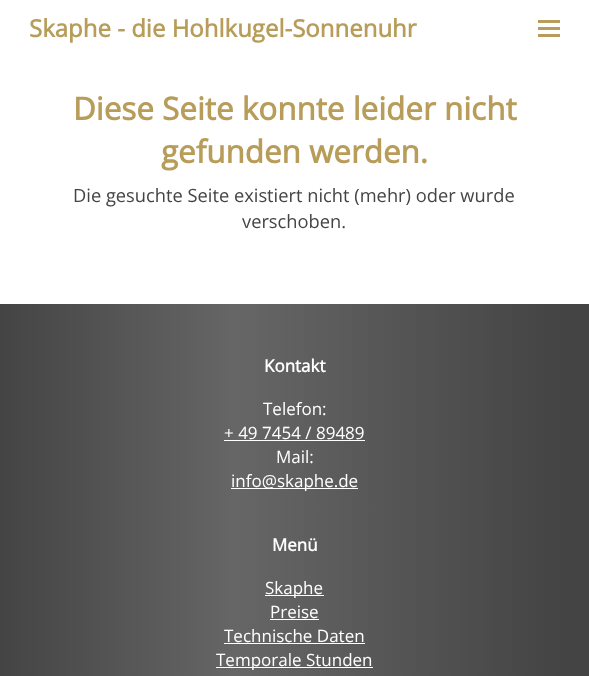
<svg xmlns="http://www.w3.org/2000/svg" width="589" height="676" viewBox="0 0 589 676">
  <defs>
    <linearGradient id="g1" gradientUnits="userSpaceOnUse" x1="0" y1="651" x2="589" y2="651"><stop offset="0" stop-color="rgb(68,68,68)"/><stop offset="0.4" stop-color="rgb(102,102,102)"/><stop offset="0.95" stop-color="rgb(68,68,68)"/></linearGradient>
  </defs>
  <rect width="100%" height="100%" fill="rgb(255,255,255)"/>
  <text x="29" y="37" font-family="Open Sans" font-size="24" font-weight="bold" fill="rgb(184,157,90)">Skaphe - die Hohlkugel-Sonnenuhr</text>
  <rect x="538" y="27" width="22" height="3" fill="rgb(184,157,90)"/>
  <rect x="538" y="20" width="22" height="3" fill="rgb(184,157,90)"/>
  <rect x="538" y="34" width="22" height="3" fill="rgb(184,157,90)"/>
  <g font-family="Open Sans" font-size="31.4" font-weight="bold" fill="rgb(184,157,90)">
    <text x="73" y="120">Diese Seite konnte leider nicht</text>
    <text x="161" y="163">gefunden werden.</text>
  </g>
  <g font-family="Open Sans" font-size="18.3" fill="rgb(68,68,68)">
    <text x="73" y="202">Die gesuchte Seite existiert nicht (mehr) oder wurde</text>
    <text x="242" y="228">verschoben.</text>
  </g>
  <rect x="0" y="304" width="589" height="372" fill="url(#g1)"/>
  <text x="264" y="372" font-family="Open Sans" font-size="17" font-weight="bold" fill="rgb(255,255,255)">Kontakt</text>
  <g font-family="Open Sans" font-size="17" fill="rgb(255,255,255)">
    <text x="263" y="415">Telefon:</text>
    <text x="224" y="439">+ 49 7454 / 89489</text>
  </g>
  <rect x="224" y="440" width="141" height="1" fill="rgb(255,255,255)"/>
  <text x="276" y="463" font-family="Open Sans" font-size="17" fill="rgb(255,255,255)">Mail:</text>
  <rect x="231" y="488" width="127" height="1" fill="rgb(255,255,255)"/>
  <text x="231" y="487" font-family="Open Sans" font-size="17" fill="rgb(255,255,255)">info@skaphe.de</text>
  <text x="272" y="551" font-family="Open Sans" font-size="17" font-weight="bold" fill="rgb(255,255,255)">Menü</text>
  <rect x="265" y="595" width="59" height="1" fill="rgb(255,255,255)"/>
  <g font-family="Open Sans" font-size="17" fill="rgb(255,255,255)">
    <text x="265" y="594">Skaphe</text>
    <text x="270" y="618">Preise</text>
  </g>
  <rect x="270" y="619" width="49" height="1" fill="rgb(255,255,255)"/>
  <text x="224" y="642" font-family="Open Sans" font-size="17" fill="rgb(255,255,255)">Technische Daten</text>
  <rect x="224" y="643" width="141" height="1" fill="rgb(255,255,255)"/>
  <rect x="216" y="667" width="157" height="1" fill="rgb(255,255,255)"/>
  <text x="216" y="666" font-family="Open Sans" font-size="17" fill="rgb(255,255,255)">Temporale Stunden</text>
</svg>
